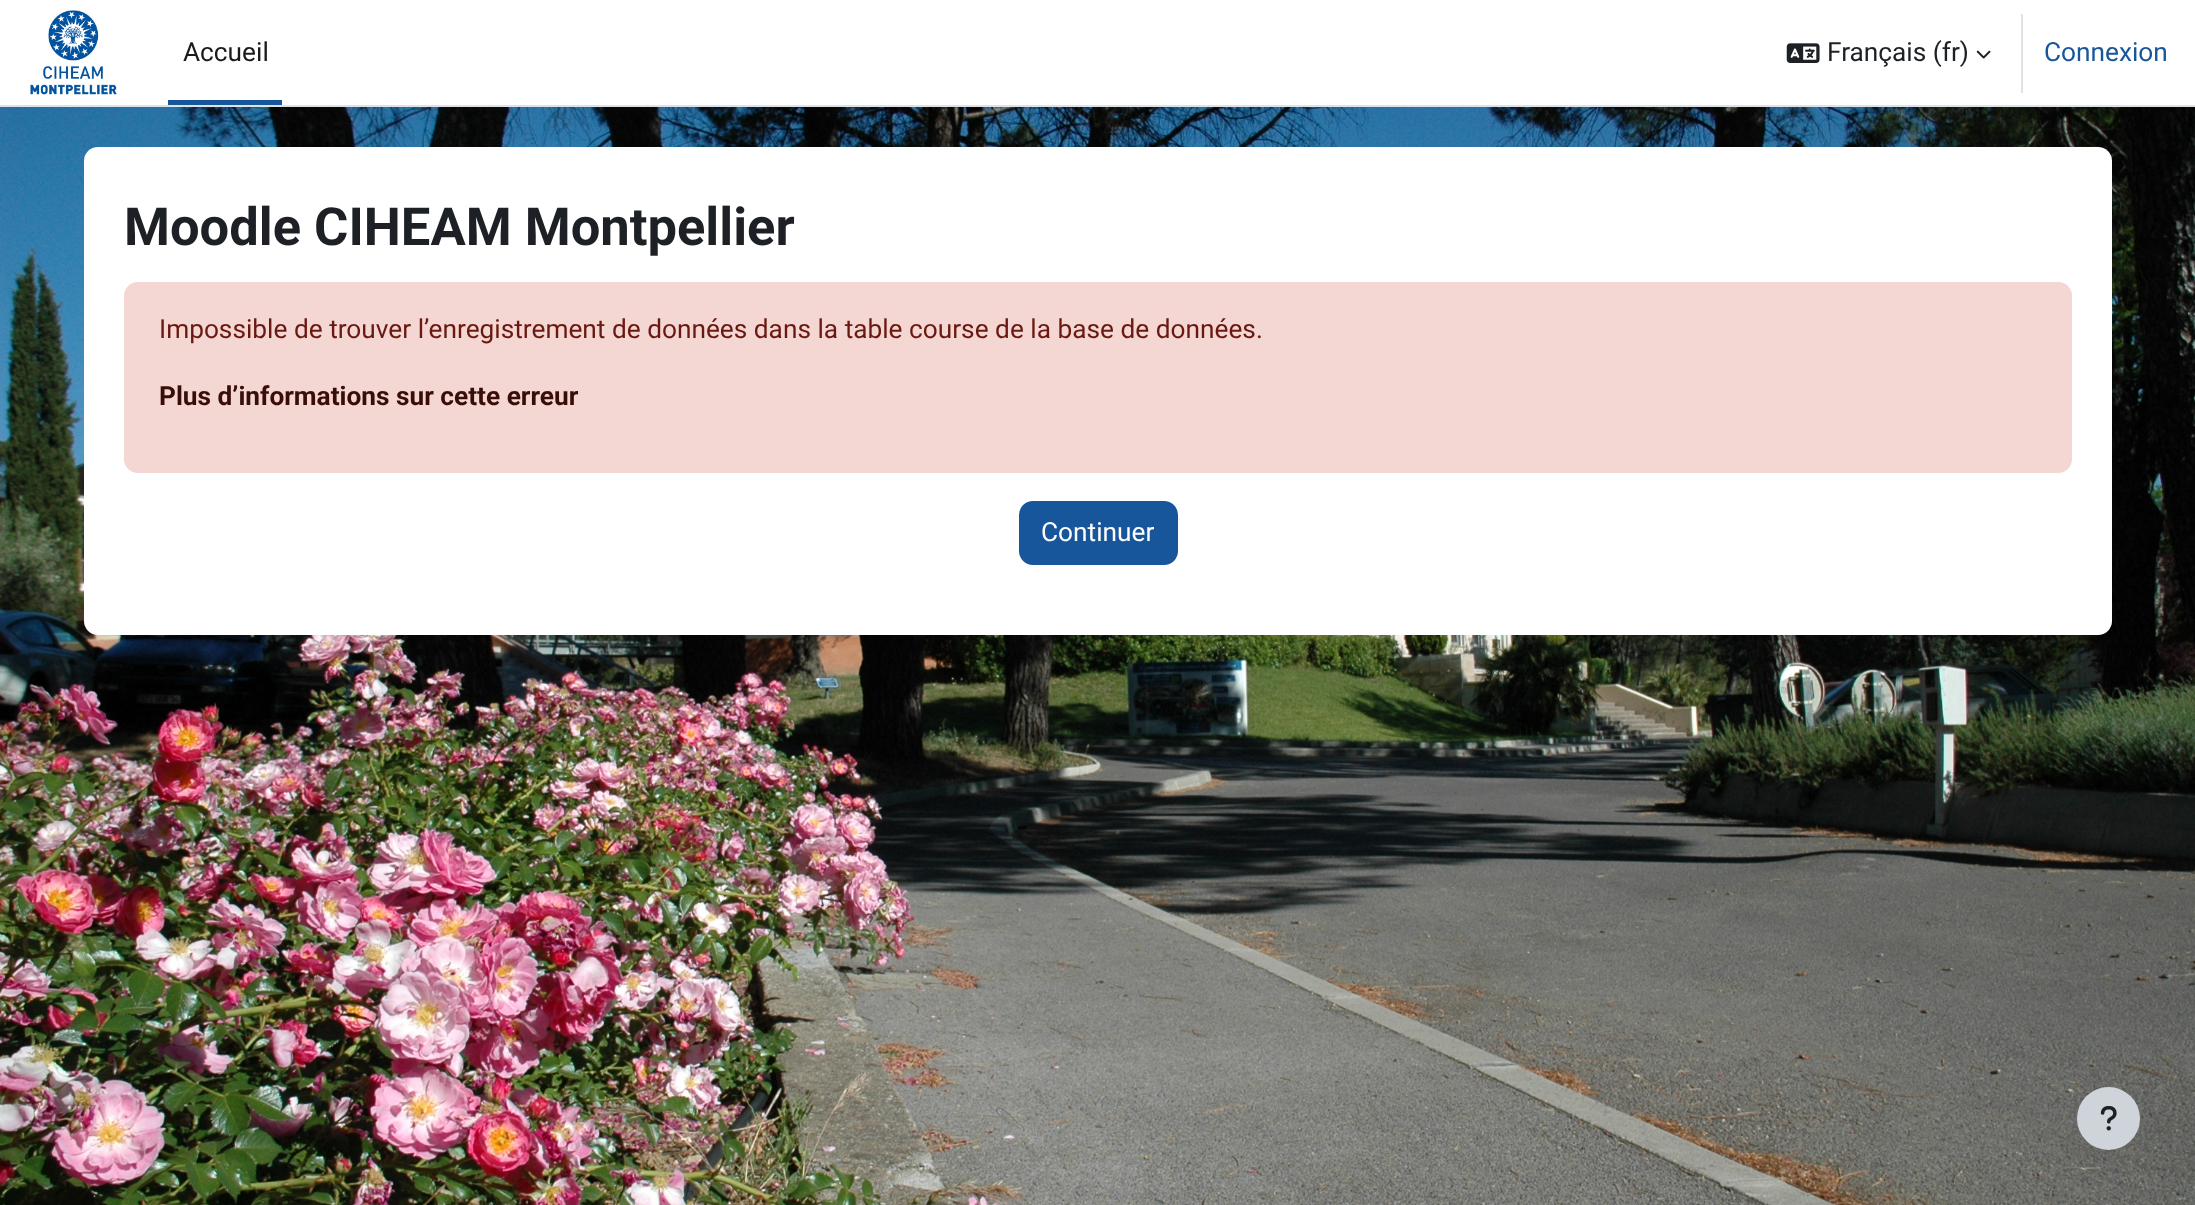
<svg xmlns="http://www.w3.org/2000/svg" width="2195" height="1205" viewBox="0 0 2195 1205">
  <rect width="100%" height="100%" fill="rgb(255,255,255)"/>
  <image x="0" y="107" width="2195" height="1098" href="pic1.png"/>
  <rect x="0" y="105" width="2195" height="2" fill="rgb(222,226,230)"/>
  <image x="30" y="10" width="87" height="85" href="pic2.png"/>
  <rect x="168" y="100" width="114" height="5" fill="rgb(24,86,156)"/>
  <text x="183" y="61" font-family="Roboto" font-size="26.25" fill="rgb(26,26,26)">Accueil</text>
  <image x="1786" y="43" width="34" height="20" href="pic3.png"/>
  <text x="1827" y="61" font-family="Roboto" font-size="26.25" fill="rgb(29,33,37)">Français (fr)</text>
  <image x="1976" y="50" width="15" height="9" href="pic4.png"/>
  <rect x="2021" y="14" width="2" height="79" fill="rgb(222,226,230)"/>
  <text x="2044" y="61" font-family="Roboto" font-size="26.25" fill="rgb(24,86,156)">Connexion</text>
  <rect x="84" y="147" width="2028" height="488" rx="14" fill="rgb(255,255,255)"/>
  <text x="124" y="245" font-family="Roboto" font-size="52.5" font-weight="bold" fill="rgb(29,33,37)">Moodle CIHEAM Montpellier</text>
  <rect x="124" y="282" width="1948" height="191" rx="14" fill="rgb(244,214,210)"/>
  <text x="159" y="338" font-family="Roboto" font-size="26.25" fill="rgb(105,25,17)">Impossible de trouver l’enregistrement de données dans la table course de la base de données.</text>
  <text x="159" y="405" font-family="Roboto" font-size="26.25" font-weight="bold" fill="rgb(57,14,9)">Plus d’informations sur cette erreur</text>
  <rect x="1020" y="502" width="157" height="62" rx="13" fill="rgb(24,86,156)" stroke="rgb(24,86,156)" stroke-width="2"/>
  <text x="1041" y="541" font-family="Roboto" font-size="26.25" fill="rgb(255,255,255)">Continuer</text>
  <circle cx="2108.5" cy="1118.5" r="31.5" fill="rgb(206,212,218)"/>
  <image x="2100" y="1106" width="17" height="25" href="pic5.png"/>
</svg>
